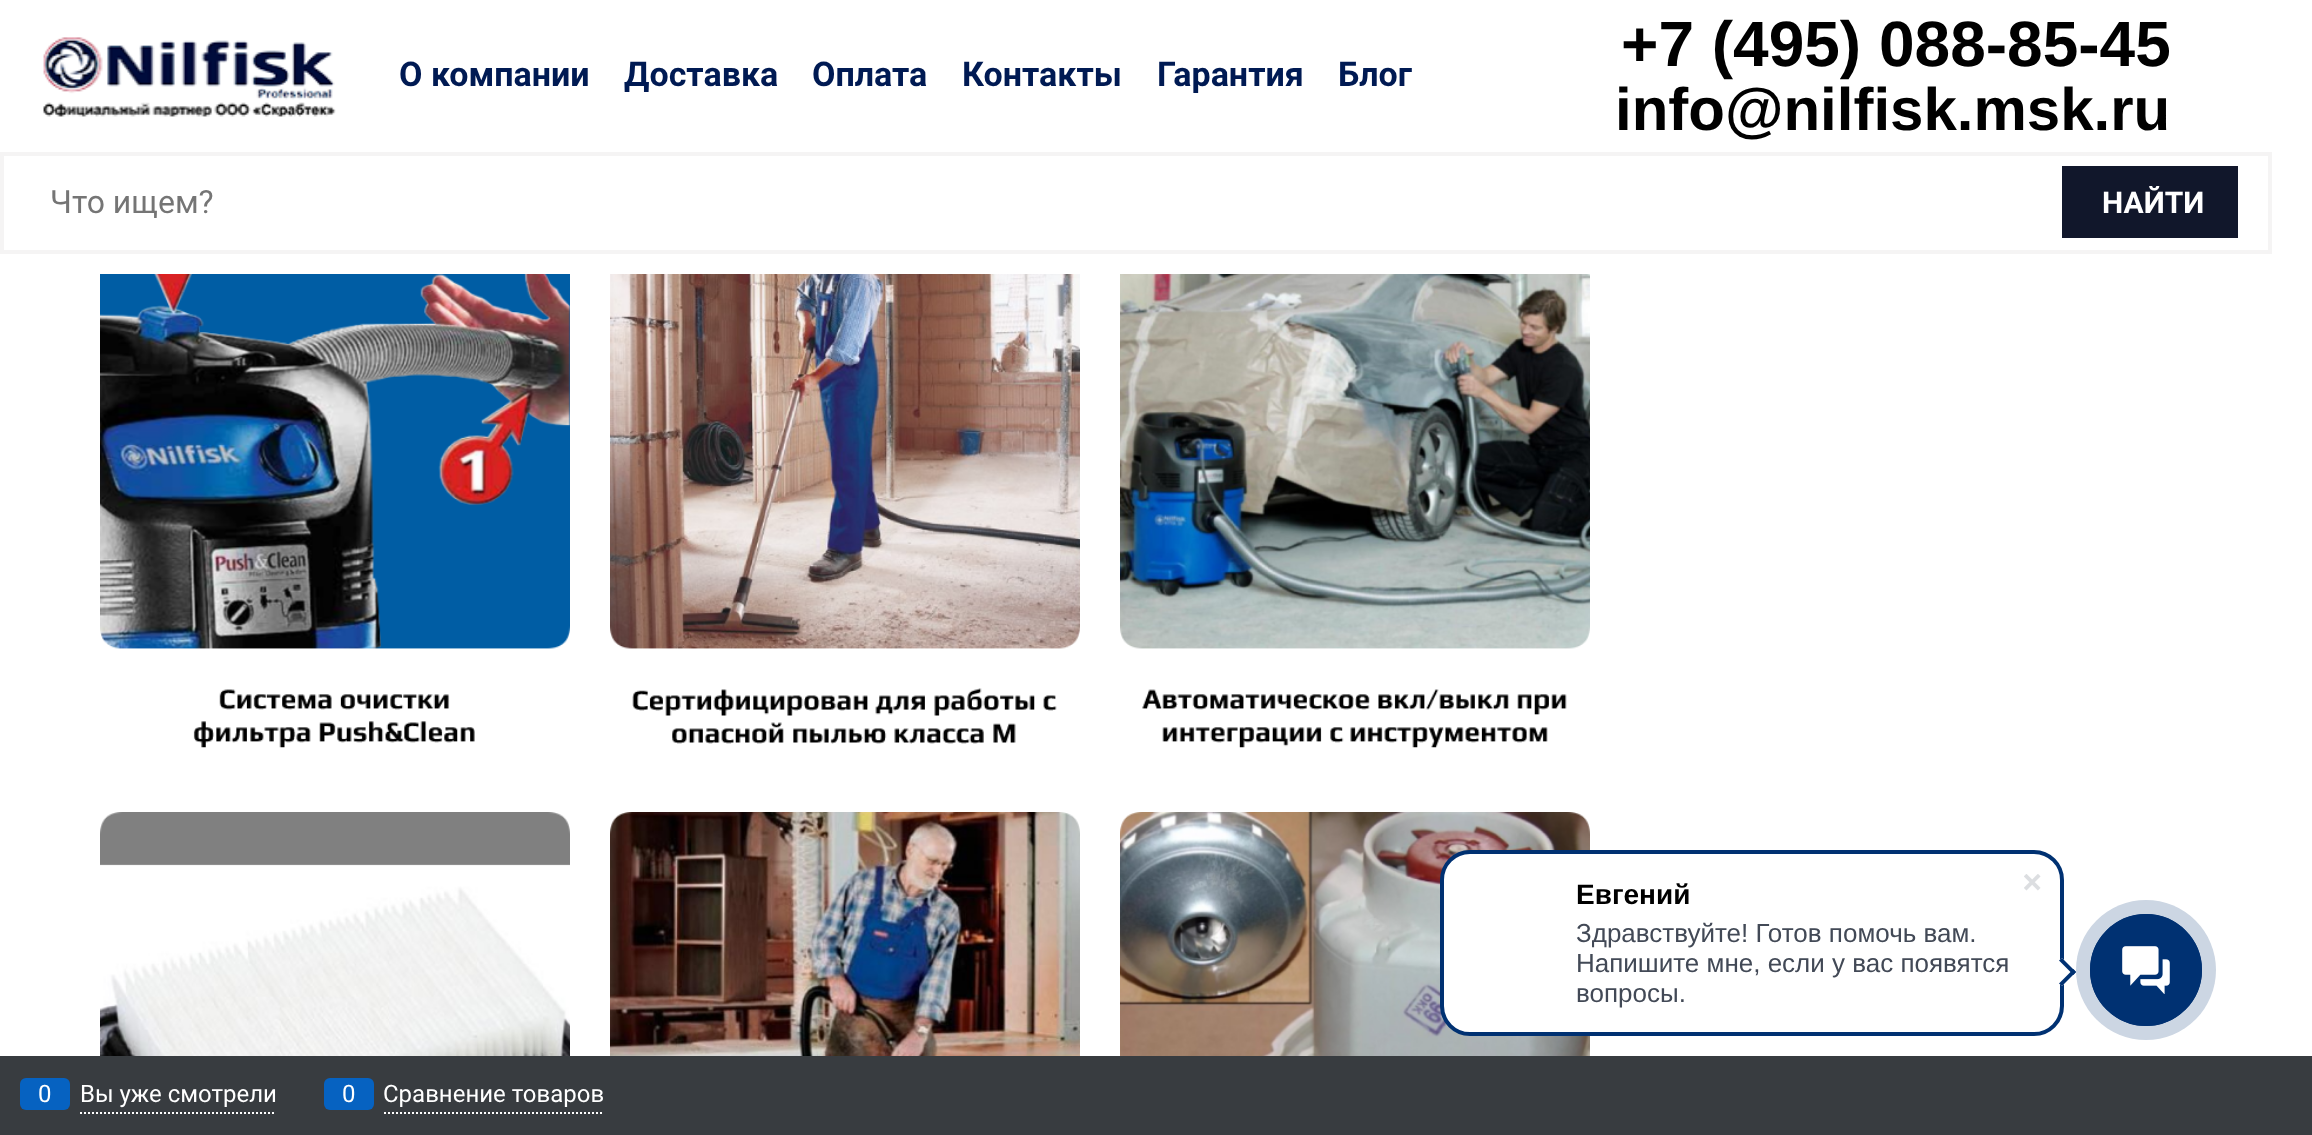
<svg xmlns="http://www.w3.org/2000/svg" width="2312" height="1135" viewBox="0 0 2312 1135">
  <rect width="100%" height="100%" fill="rgb(255,255,255)"/>
  <image x="43" y="37" width="293" height="80" href="pic1.png"/>
  <g font-family="Roboto" font-size="34" font-weight="bold" fill="rgb(0,26,83)">
    <text x="399" y="86">О компании</text>
    <text x="624" y="86">Доставка</text>
    <text x="812" y="86">Оплата</text>
    <text x="962" y="86">Контакты</text>
    <text x="1157" y="86">Гарантия</text>
    <text x="1338" y="86">Блог</text>
  </g>
  <text x="1621" y="66" font-family="Liberation Sans" font-size="64" font-weight="bold" fill="rgb(0,0,0)">+7 (495) 088-85-45</text>
  <text x="1615" y="130" font-family="Liberation Sans" font-size="60" font-weight="bold" fill="rgb(0,0,0)">info@nilfisk.msk.ru</text>
  <rect x="2" y="154" width="2268" height="98" fill="none" stroke="rgb(245,244,244)" stroke-width="4"/>
  <text x="50" y="213" font-family="Roboto" font-size="32" fill="rgb(117,117,117)">Что ищем?</text>
  <rect x="2062" y="166" width="176" height="72" fill="rgb(17,23,43)"/>
  <text x="2102" y="213" font-family="Roboto" font-size="30" font-weight="bold" fill="rgb(255,255,255)">НАЙТИ</text>
  <image x="100" y="274" width="470" height="474" href="pic2.png"/>
  <image x="610" y="274" width="470" height="470" href="pic3.png"/>
  <image x="1120" y="274" width="470" height="474" href="pic4.png"/>
  <image x="100" y="812" width="470" height="244" href="pic5.png"/>
  <image x="610" y="812" width="470" height="244" href="pic6.png"/>
  <image x="1120" y="812" width="470" height="244" href="pic7.png"/>
  <rect x="0" y="1056" width="2312" height="79" fill="rgb(56,60,64)"/>
  <path d="M80 1113H276" fill="none" stroke="rgb(255,255,255)" stroke-width="2" stroke-dasharray="2 2"/>
  <rect x="20" y="1078" width="50" height="32" rx="6" fill="rgb(6,98,193)"/>
  <g font-family="Roboto" font-size="24" fill="rgb(255,255,255)">
    <text x="38" y="1102">0</text>
    <text x="80" y="1102">Вы уже смотрели</text>
  </g>
  <path d="M384 1113H604" fill="none" stroke="rgb(255,255,255)" stroke-width="2" stroke-dasharray="2 2"/>
  <rect x="324" y="1078" width="50" height="32" rx="6" fill="rgb(6,98,193)"/>
  <g font-family="Roboto" font-size="24" fill="rgb(255,255,255)">
    <text x="342" y="1102">0</text>
    <text x="383" y="1102">Сравнение товаров</text>
  </g>
  <rect x="1442" y="852" width="620" height="182" rx="28" fill="rgb(255,255,255)" stroke="rgb(0,49,114)" stroke-width="4"/>
  <text x="1576" y="904" font-family="Liberation Sans" font-size="28" font-weight="bold" fill="rgb(0,0,0)">Евгений</text>
  <g font-family="Liberation Sans" font-size="26" fill="rgb(66,73,86)">
    <text>
      <tspan x="1576" y="942">Здравствуйте! Готов помочь вам.</tspan>
      <tspan x="1576" y="972">Напишите мне, если у вас появятся</tspan>
      <tspan x="1576" y="1002">вопросы.</tspan>
    </text>
  </g>
  <image x="2024" y="874" width="17" height="17" href="pic8.png"/>
  <path d="M2048 972L2062 958L2076 972L2062 986Z" fill="rgb(255,255,255)"/>
  <path d="M2059 960.5L2062 958L2076 972L2073.5 975Z" fill="rgb(0,49,114)"/>
  <path d="M2059 983.5L2073.5 969L2076 972L2062 986Z" fill="rgb(0,49,114)"/>
  <circle cx="2146" cy="970" r="70" fill="rgb(204,214,227)"/>
  <circle cx="2146" cy="970" r="55" fill="none" stroke="rgb(0,49,114)" stroke-width="2"/>
  <circle cx="2146" cy="970" r="56" fill="rgb(0,49,114)"/>
  <image x="2122" y="946" width="48" height="48" href="pic9.png"/>
</svg>
